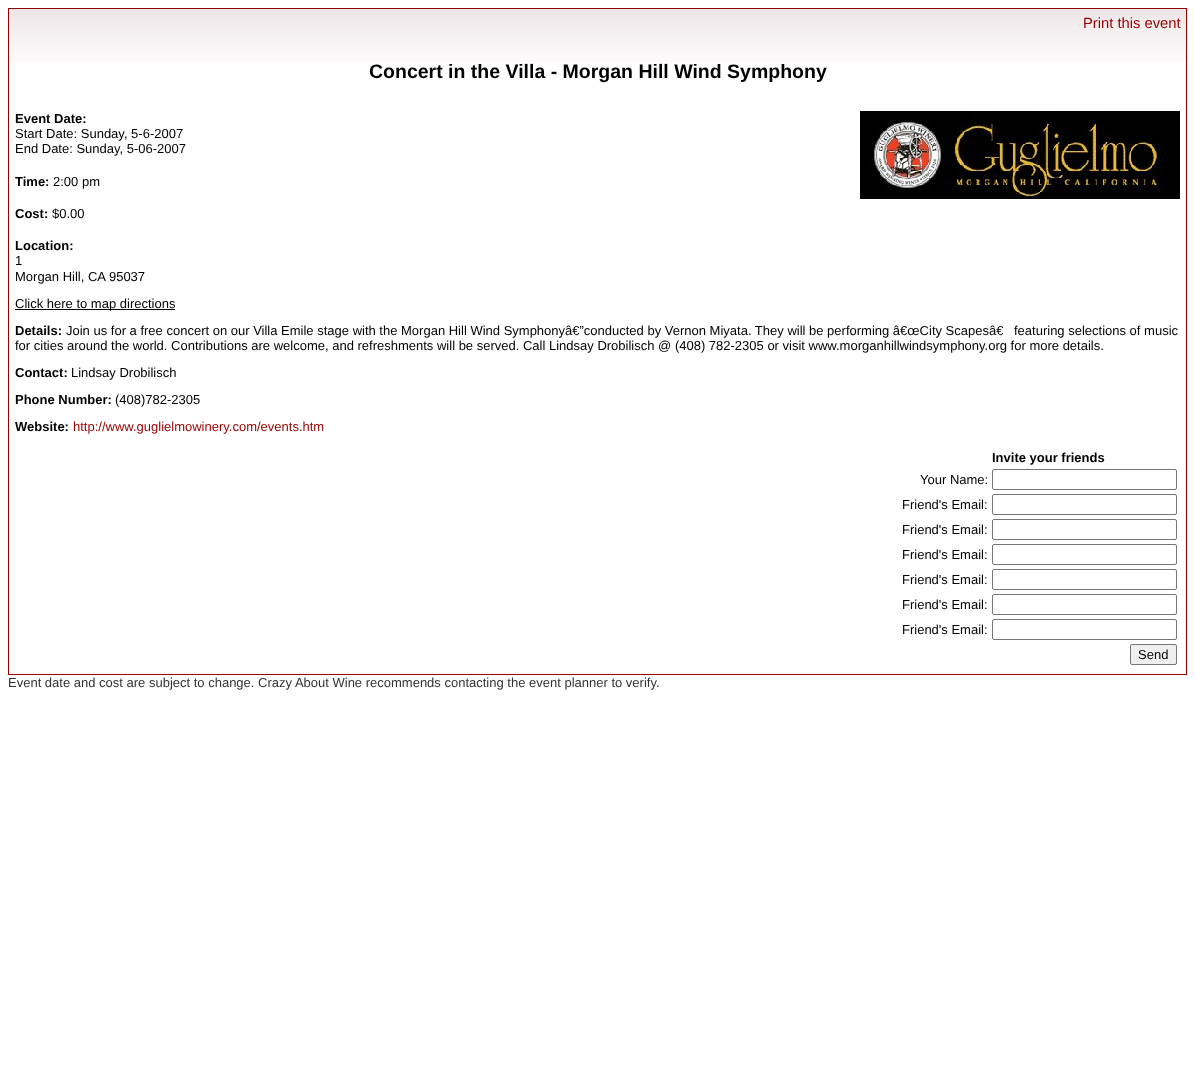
<svg xmlns="http://www.w3.org/2000/svg" width="1195" height="1092" viewBox="0 0 1195 1092">
  <rect width="100%" height="100%" fill="rgb(255,255,255)"/>
  <image x="9" y="9" width="1177" height="53" href="pic1.png"/>
  <rect x="8.5" y="8.5" width="1178" height="666" fill="none" stroke="rgb(153,0,0)"/>
  <text x="1083" y="28" font-family="Liberation Sans" font-size="14.75" fill="rgb(153,0,0)">Print this event</text>
  <text x="369" y="78" font-family="Liberation Sans" font-size="19.5" font-weight="bold" fill="rgb(0,0,0)">Concert in the Villa - Morgan Hill Wind Symphony</text>
  <text x="15" y="123" font-family="Liberation Sans" font-size="13" font-weight="bold" fill="rgb(0,0,0)">Event Date:</text>
  <image x="860" y="111" width="320" height="88" href="pic2.png"/>
  <g font-family="Liberation Sans" font-size="13" fill="rgb(0,0,0)">
    <text>
      <tspan x="15" y="138">Start Date: Sunday, 5-6-2007</tspan>
      <tspan x="15" y="153">End Date: Sunday, 5-06-2007</tspan>
    </text>
  </g>
  <text x="15" y="186" font-family="Liberation Sans" font-size="13" font-weight="bold" fill="rgb(0,0,0)">Time:</text>
  <text x="53" y="186" font-family="Liberation Sans" font-size="13" fill="rgb(0,0,0)">2:00 pm</text>
  <text x="15" y="218" font-family="Liberation Sans" font-size="13" font-weight="bold" fill="rgb(0,0,0)">Cost:</text>
  <text x="52" y="218" font-family="Liberation Sans" font-size="13" fill="rgb(0,0,0)">$0.00</text>
  <text x="15" y="250" font-family="Liberation Sans" font-size="13" font-weight="bold" fill="rgb(0,0,0)">Location:</text>
  <g font-family="Liberation Sans" font-size="13" fill="rgb(0,0,0)">
    <text>
      <tspan x="15" y="265">1</tspan>
      <tspan x="15" y="281">Morgan Hill, CA 95037</tspan>
    </text>
  </g>
  <rect x="15" y="309" width="160" height="1" fill="rgb(0,0,0)"/>
  <text x="15" y="308" font-family="Liberation Sans" font-size="13" fill="rgb(0,0,0)">Click here to map directions</text>
  <text x="15" y="335" font-family="Liberation Sans" font-size="13" font-weight="bold" fill="rgb(0,0,0)">Details:</text>
  <g font-family="Liberation Sans" font-size="13" fill="rgb(0,0,0)">
    <text x="66" y="335">Join us for a free concert on our Villa Emile stage with the Morgan Hill Wind Symphonyâ€”conducted by Vernon Miyata. They will be performing â€œCity Scapesâ€</text>
    <text x="1014" y="335">featuring selections of music</text>
    <text x="15" y="350">for cities around the world. Contributions are welcome, and refreshments will be served. Call Lindsay Drobilisch @ (408) 782-2305 or visit www.morganhillwindsymphony.org for more details.</text>
  </g>
  <text x="15" y="377" font-family="Liberation Sans" font-size="13" font-weight="bold" fill="rgb(0,0,0)">Contact:</text>
  <text x="71" y="377" font-family="Liberation Sans" font-size="13" fill="rgb(0,0,0)">Lindsay Drobilisch</text>
  <text x="15" y="404" font-family="Liberation Sans" font-size="13" font-weight="bold" fill="rgb(0,0,0)">Phone Number:</text>
  <text x="115" y="404" font-family="Liberation Sans" font-size="13" fill="rgb(0,0,0)">(408)782-2305</text>
  <text x="15" y="431" font-family="Liberation Sans" font-size="13" font-weight="bold" fill="rgb(0,0,0)">Website:</text>
  <text x="73" y="431" font-family="Liberation Sans" font-size="13" fill="rgb(153,0,0)">http://www.guglielmowinery.com/events.htm</text>
  <text x="992" y="462" font-family="Liberation Sans" font-size="13" font-weight="bold" fill="rgb(0,0,0)">Invite your friends</text>
  <text x="920" y="484" font-family="Liberation Sans" font-size="13" fill="rgb(0,0,0)">Your Name:</text>
  <rect x="992.5" y="469.5" width="184" height="20" rx="1.5" fill="none" stroke="rgb(118,118,118)"/>
  <text x="902" y="509" font-family="Liberation Sans" font-size="13" fill="rgb(0,0,0)">Friend's Email:</text>
  <rect x="992.5" y="494.5" width="184" height="20" rx="1.5" fill="none" stroke="rgb(118,118,118)"/>
  <text x="902" y="534" font-family="Liberation Sans" font-size="13" fill="rgb(0,0,0)">Friend's Email:</text>
  <rect x="992.5" y="519.5" width="184" height="20" rx="1.5" fill="none" stroke="rgb(118,118,118)"/>
  <text x="902" y="559" font-family="Liberation Sans" font-size="13" fill="rgb(0,0,0)">Friend's Email:</text>
  <rect x="992.5" y="544.5" width="184" height="20" rx="1.5" fill="none" stroke="rgb(118,118,118)"/>
  <text x="902" y="584" font-family="Liberation Sans" font-size="13" fill="rgb(0,0,0)">Friend's Email:</text>
  <rect x="992.5" y="569.5" width="184" height="20" rx="1.5" fill="none" stroke="rgb(118,118,118)"/>
  <text x="902" y="609" font-family="Liberation Sans" font-size="13" fill="rgb(0,0,0)">Friend's Email:</text>
  <rect x="992.5" y="594.5" width="184" height="20" rx="1.5" fill="none" stroke="rgb(118,118,118)"/>
  <text x="902" y="634" font-family="Liberation Sans" font-size="13" fill="rgb(0,0,0)">Friend's Email:</text>
  <rect x="992.5" y="619.5" width="184" height="20" rx="1.5" fill="none" stroke="rgb(118,118,118)"/>
  <rect x="1130.5" y="644.5" width="46" height="20" rx="1.5" fill="rgb(239,239,239)" stroke="rgb(118,118,118)"/>
  <text x="1138" y="659" font-family="Liberation Sans" font-size="13" fill="rgb(0,0,0)">Send</text>
  <text x="8" y="687" font-family="Liberation Sans" font-size="13" fill="rgb(51,51,51)">Event date and cost are subject to change. Crazy About Wine recommends contacting the event planner to verify.</text>
</svg>
